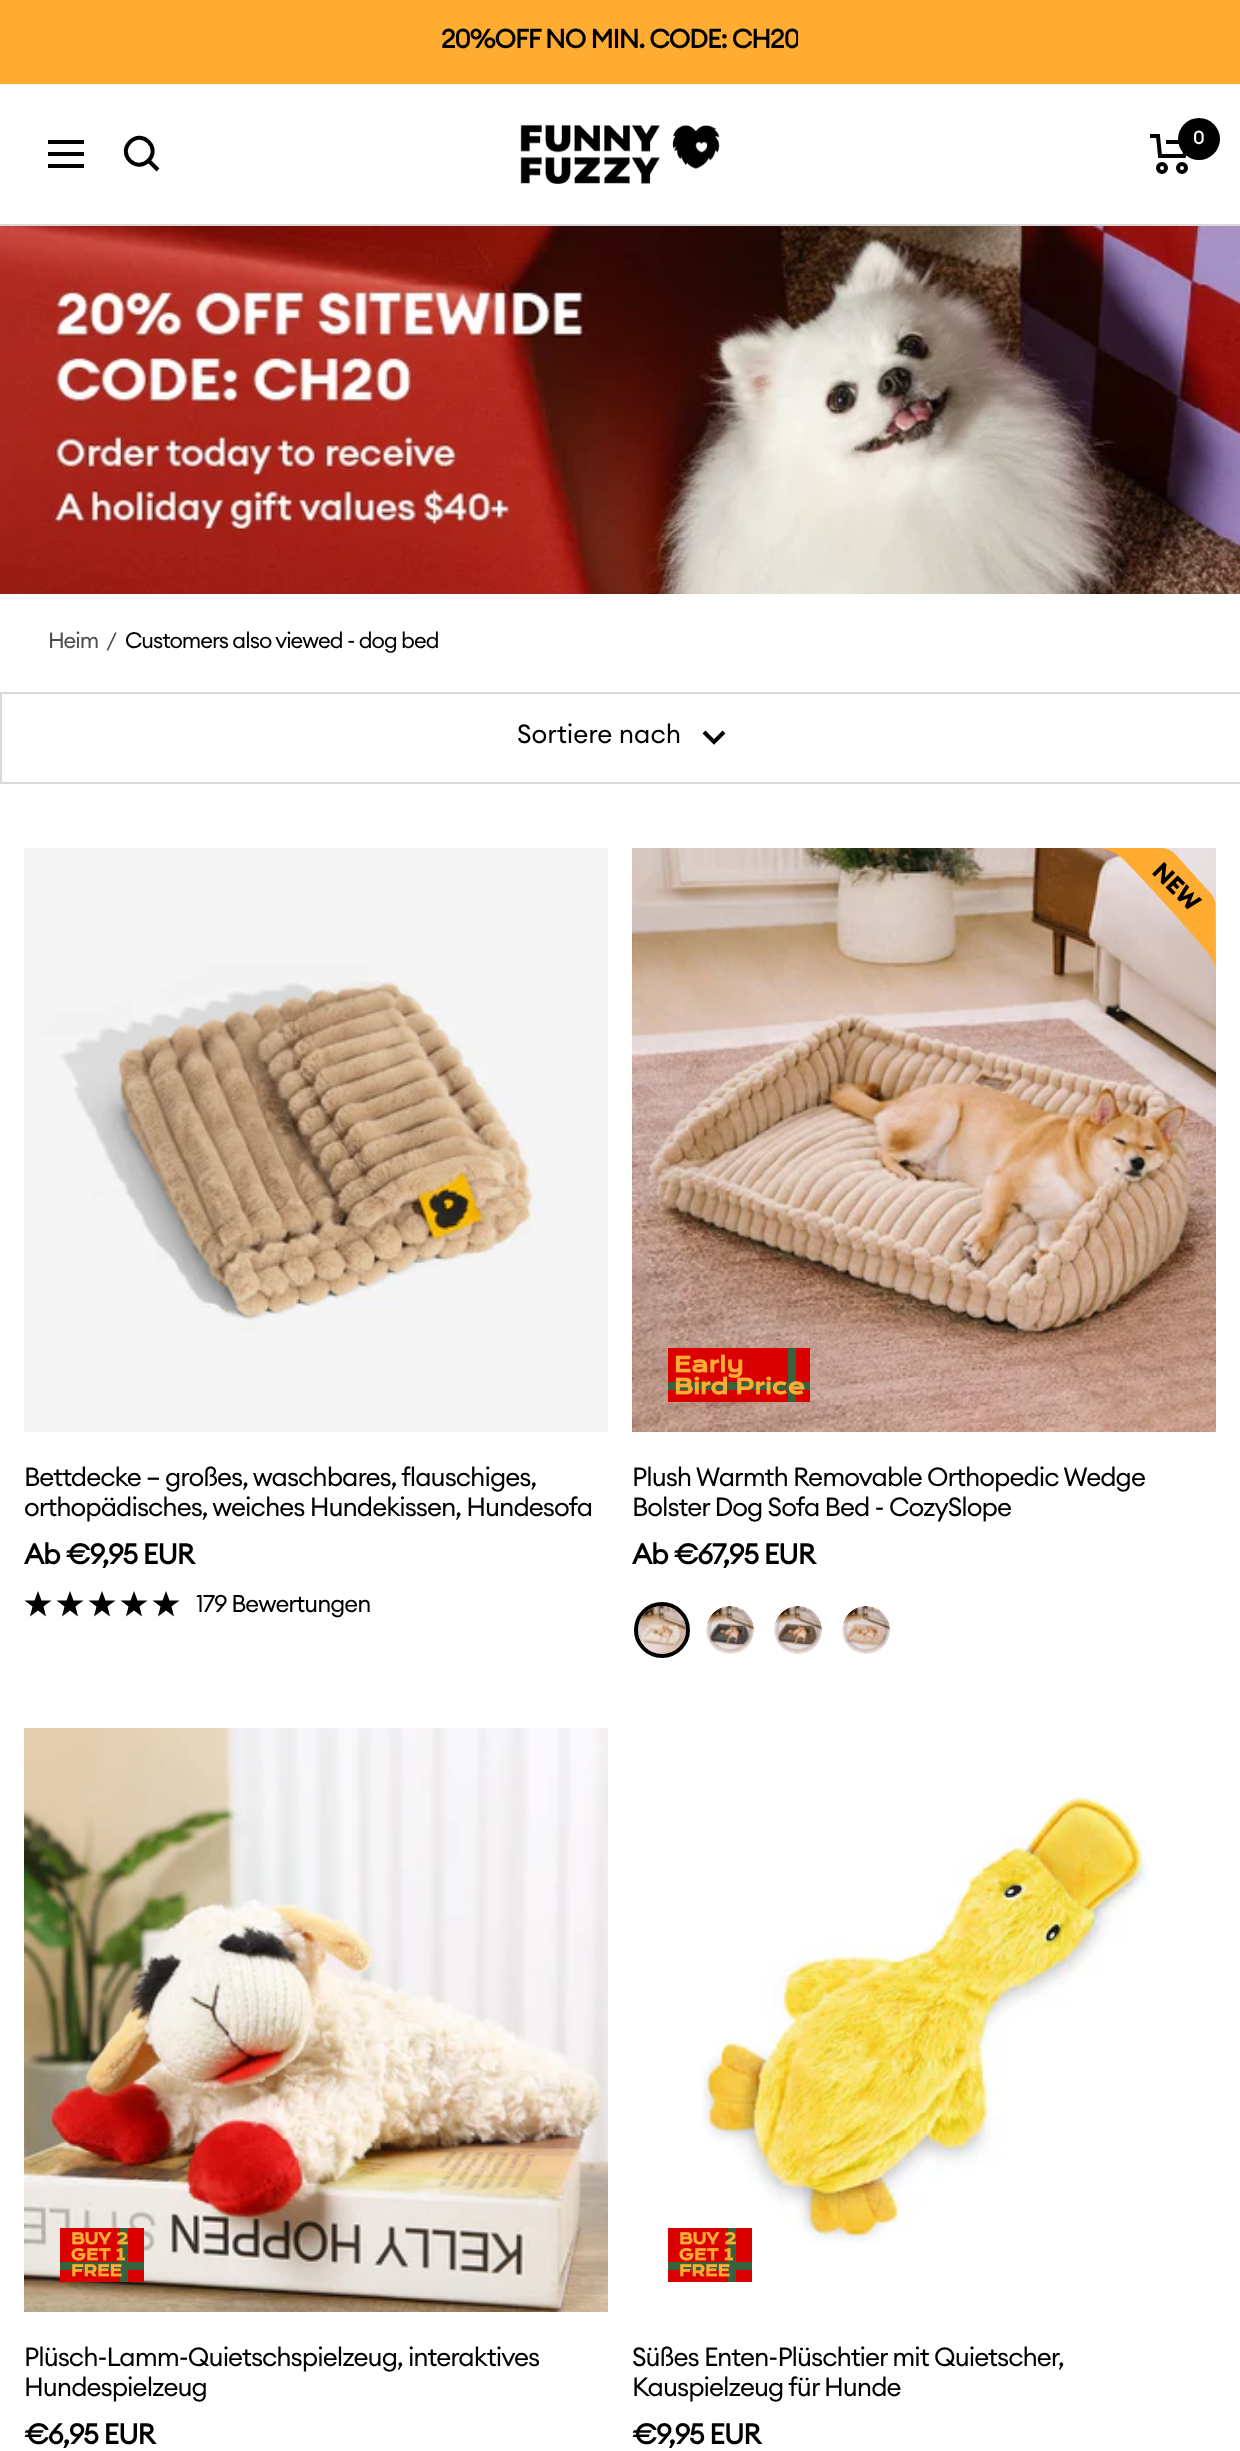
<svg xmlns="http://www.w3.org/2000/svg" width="1240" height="2451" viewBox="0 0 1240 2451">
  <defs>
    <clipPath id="clip1"><rect x="442" y="20" width="356" height="44"/></clipPath>
  </defs>
  <rect width="100%" height="100%" fill="rgb(255,255,255)"/>
  <rect x="0" y="0" width="1240" height="84" fill="rgb(255,172,51)"/>
  <g clip-path="url(#clip1)">
    <text x="441" y="48" font-family="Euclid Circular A" font-size="26" font-weight="bold" letter-spacing="-1" fill="rgb(0,0,0)">20%OFF NO MIN. CODE: CH20</text>
  </g>
  <rect x="0" y="224" width="1240" height="2" fill="rgb(217,217,217)"/>
  <path d="M48 142H84M48 166H84ZM48 154H84Z" fill="none" stroke="rgb(0,0,0)" stroke-width="4"/>
  <path d="M148.5 160.5C161 148 142.5 129.5 130 142C117.5 154.5 136 173 148.5 160.5ZM148.5 160.5L158 170" fill="none" stroke="rgb(0,0,0)" stroke-width="4"/>
  <image x="520" y="124" width="200" height="60" href="pic1.png"/>
  <path d="M1150 136H1158L1160 156H1184L1188 142H1166" fill="none" stroke="rgb(0,0,0)" stroke-width="4"/>
  <circle cx="1162" cy="168" r="4" fill="none" stroke="rgb(0,0,0)" stroke-width="4"/>
  <circle cx="1182" cy="168" r="4" fill="none" stroke="rgb(0,0,0)" stroke-width="4"/>
  <circle cx="1199" cy="139" r="21" fill="rgb(0,0,0)"/>
  <text x="1193" y="144" font-family="Euclid Circular A" font-size="18" font-weight="bold" fill="rgb(255,255,255)">0</text>
  <image x="0" y="226" width="1240" height="368" href="pic2.png"/>
  <g font-family="Euclid Circular A" font-size="22" letter-spacing="-1" fill="rgb(77,77,77)">
    <text x="48" y="648">Heim</text>
    <text x="106" y="648">/</text>
  </g>
  <text x="125" y="648" font-family="Euclid Circular A" font-size="22" letter-spacing="-1" fill="rgb(0,0,0)">Customers also viewed - dog bed</text>
  <rect x="0" y="692" width="1240" height="2" fill="rgb(217,217,217)"/>
  <rect x="0" y="782" width="1240" height="2" fill="rgb(217,217,217)"/>
  <rect x="0" y="692" width="2" height="92" fill="rgb(217,217,217)"/>
  <text x="517" y="743" font-family="Euclid Circular A" font-size="26" fill="rgb(0,0,0)">Sortiere nach</text>
  <path d="M704 732L714 742L724 732" fill="none" stroke="rgb(0,0,0)" stroke-width="4"/>
  <image x="24" y="848" width="584" height="584" href="pic3.png"/>
  <g font-family="Euclid Circular A" font-size="26" letter-spacing="-1" fill="rgb(0,0,0)">
    <text>
      <tspan x="24" y="1486">Bettdecke – großes, waschbares, flauschiges,</tspan>
      <tspan x="24" y="1516">orthopädisches, weiches Hundekissen, Hundesofa</tspan>
    </text>
  </g>
  <text x="24" y="1564" font-family="Euclid Circular A" font-size="28" font-weight="bold" letter-spacing="-1" fill="rgb(0,0,0)">Ab €9,95 EUR</text>
  <path d="M38 1591L41.5 1600.5H51.5L43.5 1606.5L46 1616.5L38 1610.5L30 1616.5L32.5 1606.5L24.5 1600.5H34.5ZM70 1591L73.5 1600.5H83.5L75.5 1606.5L78 1616.5L70 1610.5L62 1616.5L64.5 1606.5L56.5 1600.5H66.5Z" fill="rgb(0,0,0)"/>
  <path d="M102 1591L105.5 1600.5H115.5L107.5 1606.5L110 1616.5L102 1610.5L94 1616.5L96.5 1606.5L88.5 1600.5H98.5ZM134 1591L137.5 1600.5H147.5L139.5 1606.5L142 1616.5L134 1610.5L126 1616.5L128.5 1606.5L120.5 1600.5H130.5Z" fill="rgb(0,0,0)"/>
  <path d="M166 1591L169.5 1600.5H179.5L171.5 1606.5L174 1616.5L166 1610.5L158 1616.5L160.5 1606.5L152.5 1600.5H162.5Z" fill="rgb(0,0,0)"/>
  <text x="196" y="1612" font-family="Euclid Circular A" font-size="24" letter-spacing="-1" fill="rgb(0,0,0)">179 Bewertungen</text>
  <image x="632" y="848" width="584" height="584" href="pic4.png"/>
  <image x="668" y="1348" width="142" height="54" href="pic5.png"/>
  <image x="1097" y="848" width="119" height="124" href="pic6.png"/>
  <g font-family="Euclid Circular A" font-size="26" letter-spacing="-1" fill="rgb(0,0,0)">
    <text>
      <tspan x="632" y="1486">Plush Warmth Removable Orthopedic Wedge</tspan>
      <tspan x="632" y="1516">Bolster Dog Sofa Bed - CozySlope</tspan>
    </text>
  </g>
  <text x="632" y="1564" font-family="Euclid Circular A" font-size="28" font-weight="bold" letter-spacing="-1" fill="rgb(0,0,0)">Ab €67,95 EUR</text>
  <image x="638" y="1606" width="48" height="48" href="pic7.png"/>
  <circle cx="662" cy="1630" r="26" fill="none" stroke="rgb(255,255,255)" stroke-width="4"/>
  <circle cx="662" cy="1630" r="26" fill="none" stroke="rgb(0,0,0)" stroke-width="4"/>
  <image x="706" y="1606" width="48" height="48" href="pic8.png"/>
  <circle cx="730" cy="1630" r="26" fill="none" stroke="rgb(255,255,255)" stroke-width="4"/>
  <circle cx="730" cy="1630" r="20.5" fill="none" stroke="rgba(0,0,0,0.1)" stroke-width="3"/>
  <image x="774" y="1606" width="48" height="48" href="pic9.png"/>
  <circle cx="798" cy="1630" r="26" fill="none" stroke="rgb(255,255,255)" stroke-width="4"/>
  <circle cx="798" cy="1630" r="20.5" fill="none" stroke="rgba(0,0,0,0.1)" stroke-width="3"/>
  <image x="842" y="1606" width="48" height="48" href="pic10.png"/>
  <circle cx="866" cy="1630" r="26" fill="none" stroke="rgb(255,255,255)" stroke-width="4"/>
  <circle cx="866" cy="1630" r="20.5" fill="none" stroke="rgba(0,0,0,0.1)" stroke-width="3"/>
  <image x="24" y="1728" width="584" height="584" href="pic11.png"/>
  <image x="60" y="2228" width="84" height="54" href="pic12.png"/>
  <g font-family="Euclid Circular A" font-size="26" letter-spacing="-1" fill="rgb(0,0,0)">
    <text>
      <tspan x="24" y="2366">Plüsch-Lamm-Quietschspielzeug, interaktives</tspan>
      <tspan x="24" y="2396">Hundespielzeug</tspan>
    </text>
  </g>
  <text x="24" y="2444" font-family="Euclid Circular A" font-size="28" font-weight="bold" letter-spacing="-1" fill="rgb(0,0,0)">€6,95 EUR</text>
  <image x="699" y="1792" width="448" height="451" href="pic13.png"/>
  <image x="668" y="2228" width="84" height="54" href="pic12.png"/>
  <g font-family="Euclid Circular A" font-size="26" letter-spacing="-1" fill="rgb(0,0,0)">
    <text>
      <tspan x="632" y="2366">Süßes Enten-Plüschtier mit Quietscher,</tspan>
      <tspan x="632" y="2396">Kauspielzeug für Hunde</tspan>
    </text>
  </g>
  <text x="632" y="2444" font-family="Euclid Circular A" font-size="28" font-weight="bold" letter-spacing="-1" fill="rgb(0,0,0)">€9,95 EUR</text>
</svg>
